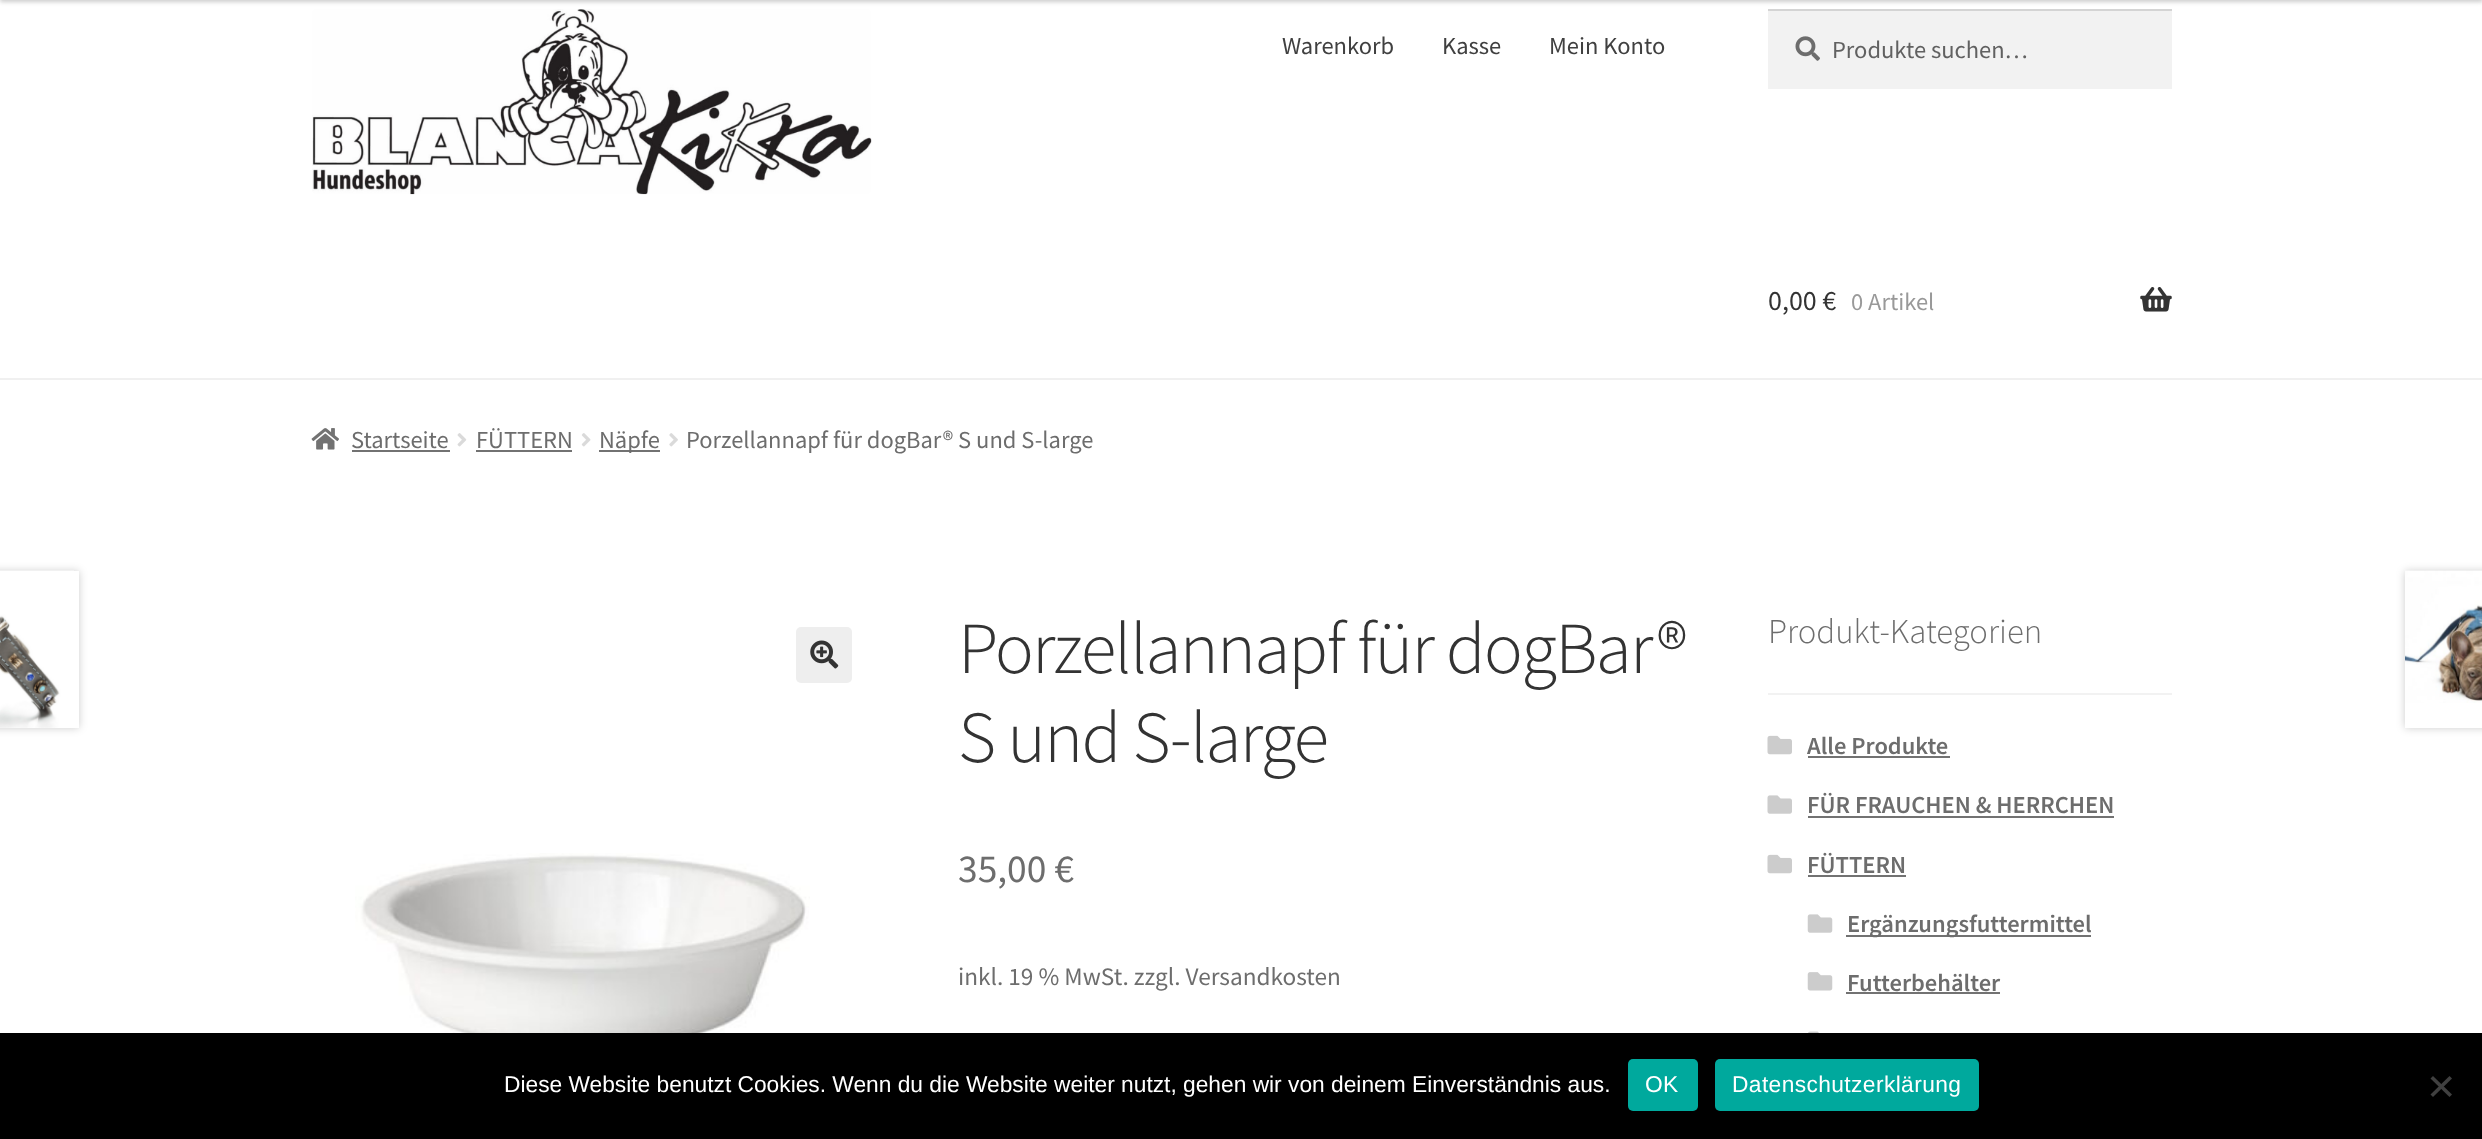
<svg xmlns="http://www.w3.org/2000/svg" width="2482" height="1139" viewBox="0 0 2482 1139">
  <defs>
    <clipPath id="clip1"><path d="M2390 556H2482V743H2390ZM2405 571H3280V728H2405Z" clip-rule="evenodd"/></clipPath>
  </defs>
  <rect width="100%" height="100%" fill="rgb(255,255,255)"/>
  <rect x="0" y="-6" width="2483" height="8" fill="rgba(0,0,0,0.2)" filter="blur(2px)"/>
  <rect x="0" y="378" width="2482" height="2" fill="rgb(240,240,240)"/>
  <image x="312" y="9" width="560" height="186" href="pic1.png"/>
  <g font-family="Source Sans Pro" font-size="24.5" fill="rgb(64,64,64)">
    <text x="1282" y="54">Warenkorb</text>
    <text x="1442" y="54">Kasse</text>
    <text x="1549" y="54">Mein Konto</text>
  </g>
  <rect x="1768" y="11" width="404" height="78" fill="rgb(242,242,242)"/>
  <image x="1795" y="36" width="25" height="25" href="pic2.png"/>
  <rect x="1768" y="9" width="404" height="2" fill="rgb(212,212,212)"/>
  <text x="1832" y="58" font-family="Source Sans Pro" font-size="24.5" fill="rgb(97,97,97)">Produkte suchen…</text>
  <text x="1768" y="310" font-family="Source Sans Pro" font-size="28" fill="rgb(51,51,51)">0,00 €</text>
  <text x="1851" y="310" font-family="Source Sans Pro" font-size="24.5" fill="rgb(153,153,153)">0 Artikel</text>
  <image x="2140" y="287" width="32" height="25" href="pic3.png"/>
  <image x="311" y="428" width="28" height="22" href="pic4.png"/>
  <text x="351" y="448" font-family="Source Sans Pro" font-size="24.5" fill="rgb(109,109,109)">Startseite</text>
  <rect x="352" y="450" width="98" height="2" fill="rgb(114,114,114)"/>
  <image x="457" y="433" width="10" height="14" href="pic5.png"/>
  <text x="476" y="448" font-family="Source Sans Pro" font-size="24.5" fill="rgb(109,109,109)">FÜTTERN</text>
  <rect x="476" y="450" width="96" height="2" fill="rgb(114,114,114)"/>
  <image x="581" y="433" width="10" height="14" href="pic6.png"/>
  <rect x="599" y="450" width="61" height="2" fill="rgb(114,114,114)"/>
  <text x="599" y="448" font-family="Source Sans Pro" font-size="24.5" fill="rgb(109,109,109)">Näpfe</text>
  <image x="669" y="433" width="9" height="14" href="pic7.png"/>
  <text x="686" y="448" font-family="Source Sans Pro" font-size="24.5" fill="rgb(109,109,109)">Porzellannapf für dogBar® S und S-large</text>
  <rect x="-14" y="571" width="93" height="157" fill="rgba(0,0,0,0.2)" filter="blur(4.5px)"/>
  <rect x="0" y="571" width="79" height="157" fill="rgb(255,255,255)"/>
  <image x="0" y="570" width="74" height="158" href="pic8.png"/>
  <g clip-path="url(#clip1)">
    <rect x="2405" y="571" width="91" height="157" fill="rgba(0,0,0,0.2)" filter="blur(4.5px)"/>
  </g>
  <image x="2405" y="570" width="77" height="133" href="pic9.png"/>
  <rect x="796" y="627" width="56" height="56" rx="5" fill="rgb(238,238,238)"/>
  <image x="810" y="640" width="29" height="29" href="pic10.png"/>
  <image x="355" y="853" width="455" height="180" href="pic11.png"/>
  <g font-family="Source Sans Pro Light" font-size="73.25" font-weight="300" letter-spacing="-1.75" fill="rgb(51,51,51)">
    <text>
      <tspan x="958" y="673">Porzellannapf für dogBar®</tspan>
      <tspan x="958" y="762">S und S-large</tspan>
    </text>
  </g>
  <text x="958" y="882" font-family="Source Sans Pro" font-size="39.5" fill="rgb(109,109,109)">35,00 €</text>
  <text x="958" y="985" font-family="Source Sans Pro" font-size="25.25" fill="rgb(109,109,109)">inkl. 19 % MwSt. zzgl. Versandkosten</text>
  <rect x="1768" y="693" width="404" height="2" fill="rgb(242,242,242)"/>
  <text x="1768" y="643" font-family="Source Sans Pro Light" font-size="34.75" font-weight="300" fill="rgb(109,109,109)">Produkt-Kategorien</text>
  <image x="1767" y="735" width="25" height="20" href="pic12.png"/>
  <text x="1807" y="754" font-family="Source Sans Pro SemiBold" font-size="24.5" font-weight="600" fill="rgb(109,109,109)">Alle Produkte</text>
  <rect x="1808" y="756" width="142" height="2" fill="rgb(114,114,114)"/>
  <image x="1767" y="795" width="25" height="19" href="pic13.png"/>
  <text x="1807" y="813" font-family="Source Sans Pro SemiBold" font-size="24.5" font-weight="600" fill="rgb(109,109,109)">FÜR FRAUCHEN &amp; HERRCHEN</text>
  <rect x="1808" y="816" width="306" height="2" fill="rgb(114,114,114)"/>
  <image x="1767" y="854" width="25" height="20" href="pic12.png"/>
  <text x="1807" y="873" font-family="Source Sans Pro SemiBold" font-size="24.5" font-weight="600" fill="rgb(109,109,109)">FÜTTERN</text>
  <rect x="1808" y="875" width="98" height="2" fill="rgb(114,114,114)"/>
  <image x="1807" y="914" width="26" height="19" href="pic14.png"/>
  <rect x="1846" y="935" width="245" height="2" fill="rgb(114,114,114)"/>
  <text x="1847" y="932" font-family="Source Sans Pro SemiBold" font-size="24.5" font-weight="600" fill="rgb(109,109,109)">Ergänzungsfuttermittel</text>
  <image x="1807" y="972" width="26" height="19" href="pic15.png"/>
  <text x="1847" y="991" font-family="Source Sans Pro SemiBold" font-size="24.5" font-weight="600" fill="rgb(109,109,109)">Futterbehälter</text>
  <rect x="1846" y="992" width="154" height="2" fill="rgb(114,114,114)"/>
  <image x="1808" y="1031" width="11" height="2" href="pic16.png"/>
  <rect x="0" y="1033" width="2482" height="106" fill="rgb(0,0,0)"/>
  <text x="504" y="1092" font-family="Liberation Sans" font-size="22.75" fill="rgb(255,255,255)">Diese Website benutzt Cookies. Wenn du die Website weiter nutzt, gehen wir von deinem Einverständnis aus.</text>
  <rect x="1628" y="1059" width="70" height="52" rx="5" fill="rgb(0,169,157)"/>
  <text x="1645" y="1092" font-family="Liberation Sans" font-size="22.75" letter-spacing="0.4" fill="rgb(255,255,255)">OK</text>
  <rect x="1715" y="1059" width="264" height="52" rx="5" fill="rgb(0,169,157)"/>
  <text x="1732" y="1092" font-family="Liberation Sans" font-size="22.75" letter-spacing="0.4" fill="rgb(255,255,255)">Datenschutzerklärung</text>
  <path d="M2449.5 1076L2452 1078.5L2433 1097L2430.5 1094.5Z" fill="rgb(64,64,64)"/>
  <path d="M2430.5 1078.5L2433 1076L2452 1094.5L2449.5 1097Z" fill="rgb(64,64,64)"/>
</svg>
